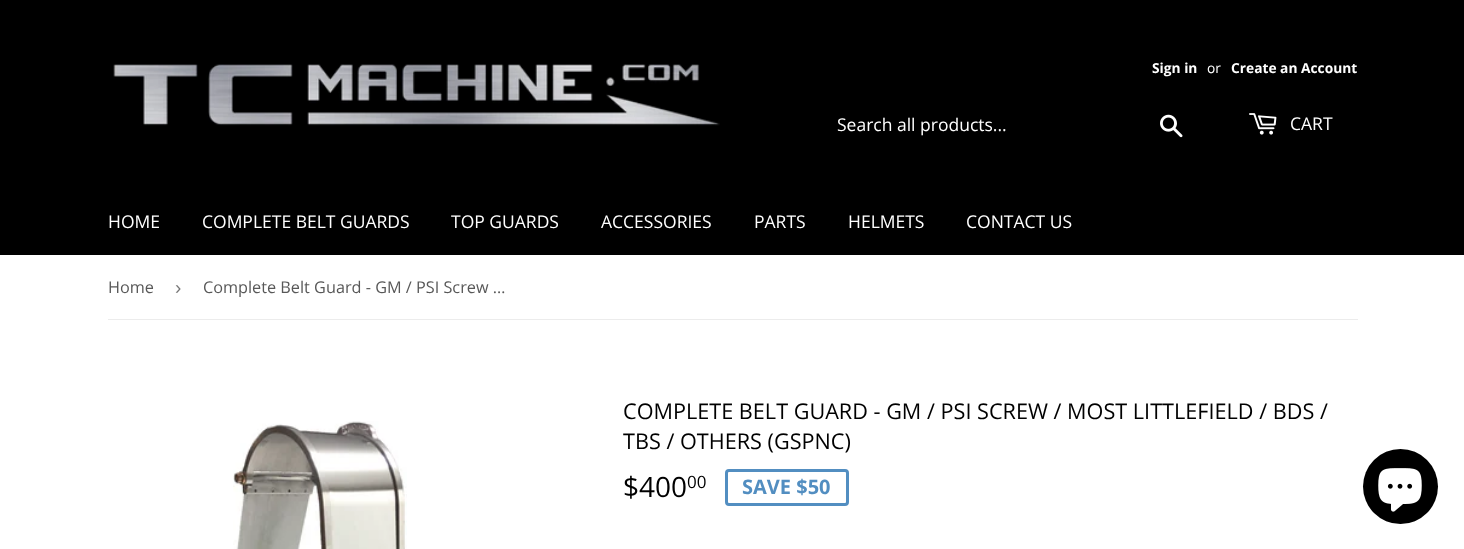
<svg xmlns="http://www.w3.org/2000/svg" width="1464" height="549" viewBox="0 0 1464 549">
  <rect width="100%" height="100%" fill="rgb(255,255,255)"/>
  <rect x="0" y="0" width="1464" height="255" fill="rgb(0,0,0)"/>
  <image x="113" y="64" width="607" height="62" href="pic1.png"/>
  <text x="1152" y="73" font-family="Open Sans" font-size="13.75" font-weight="bold" fill="rgb(255,255,255)">Sign in</text>
  <text x="1207" y="73" font-family="Open Sans" font-size="13.75" fill="rgb(255,255,255)">or</text>
  <text x="1231" y="73" font-family="Open Sans" font-size="13.75" font-weight="bold" fill="rgb(255,255,255)">Create an Account</text>
  <text x="837" y="131" font-family="Open Sans" font-size="17.5" fill="rgb(255,255,255)">Search all products...</text>
  <image x="1160" y="114" width="23" height="24" href="pic2.png"/>
  <image x="1249" y="113" width="28" height="22" href="pic3.png"/>
  <g font-family="Open Sans" font-size="17.5" fill="rgb(255,255,255)">
    <text x="1290" y="130">CART</text>
    <text x="108" y="228">HOME</text>
    <text x="202" y="228">COMPLETE BELT GUARDS</text>
    <text x="451" y="228">TOP GUARDS</text>
    <text x="601" y="228">ACCESSORIES</text>
    <text x="754" y="228">PARTS</text>
    <text x="848" y="228">HELMETS</text>
    <text x="966" y="228">CONTACT US</text>
  </g>
  <rect x="108" y="319" width="1250" height="1" fill="rgb(236,236,236)"/>
  <text x="108" y="293" font-family="Open Sans" font-size="16.25" fill="rgb(88,88,88)">Home</text>
  <text x="175" y="294" font-family="Liberation Sans" font-size="19" fill="rgb(118,118,118)">›</text>
  <text x="203" y="293" font-family="Open Sans" font-size="16.25" fill="rgb(88,88,88)">Complete Belt Guard - GM / PSI Screw …</text>
  <image x="233" y="421" width="174" height="128" href="pic4.png"/>
  <g font-family="Open Sans" font-size="21.65" fill="rgb(0,0,0)">
    <text>
      <tspan x="623" y="419">COMPLETE BELT GUARD - GM / PSI SCREW / MOST LITTLEFIELD / BDS /</tspan>
      <tspan x="623" y="449">TBS / OTHERS (GSPNC)</tspan>
    </text>
  </g>
  <text x="623" y="497" font-family="Open Sans" font-size="28" fill="rgb(0,0,0)">$400</text>
  <text x="687" y="488" font-family="Open Sans" font-size="17" fill="rgb(0,0,0)">00</text>
  <rect x="726.5" y="470.5" width="121" height="34" rx="2.5" fill="none" stroke="rgb(82,142,193)" stroke-width="3"/>
  <text x="742" y="494" font-family="Open Sans" font-size="20" font-weight="bold" fill="rgb(82,142,193)">SAVE $50</text>
  <circle cx="1400.5" cy="486.5" r="37.5" fill="rgb(0,0,0)"/>
  <image x="1378" y="468" width="44" height="44" href="pic5.png"/>
</svg>
